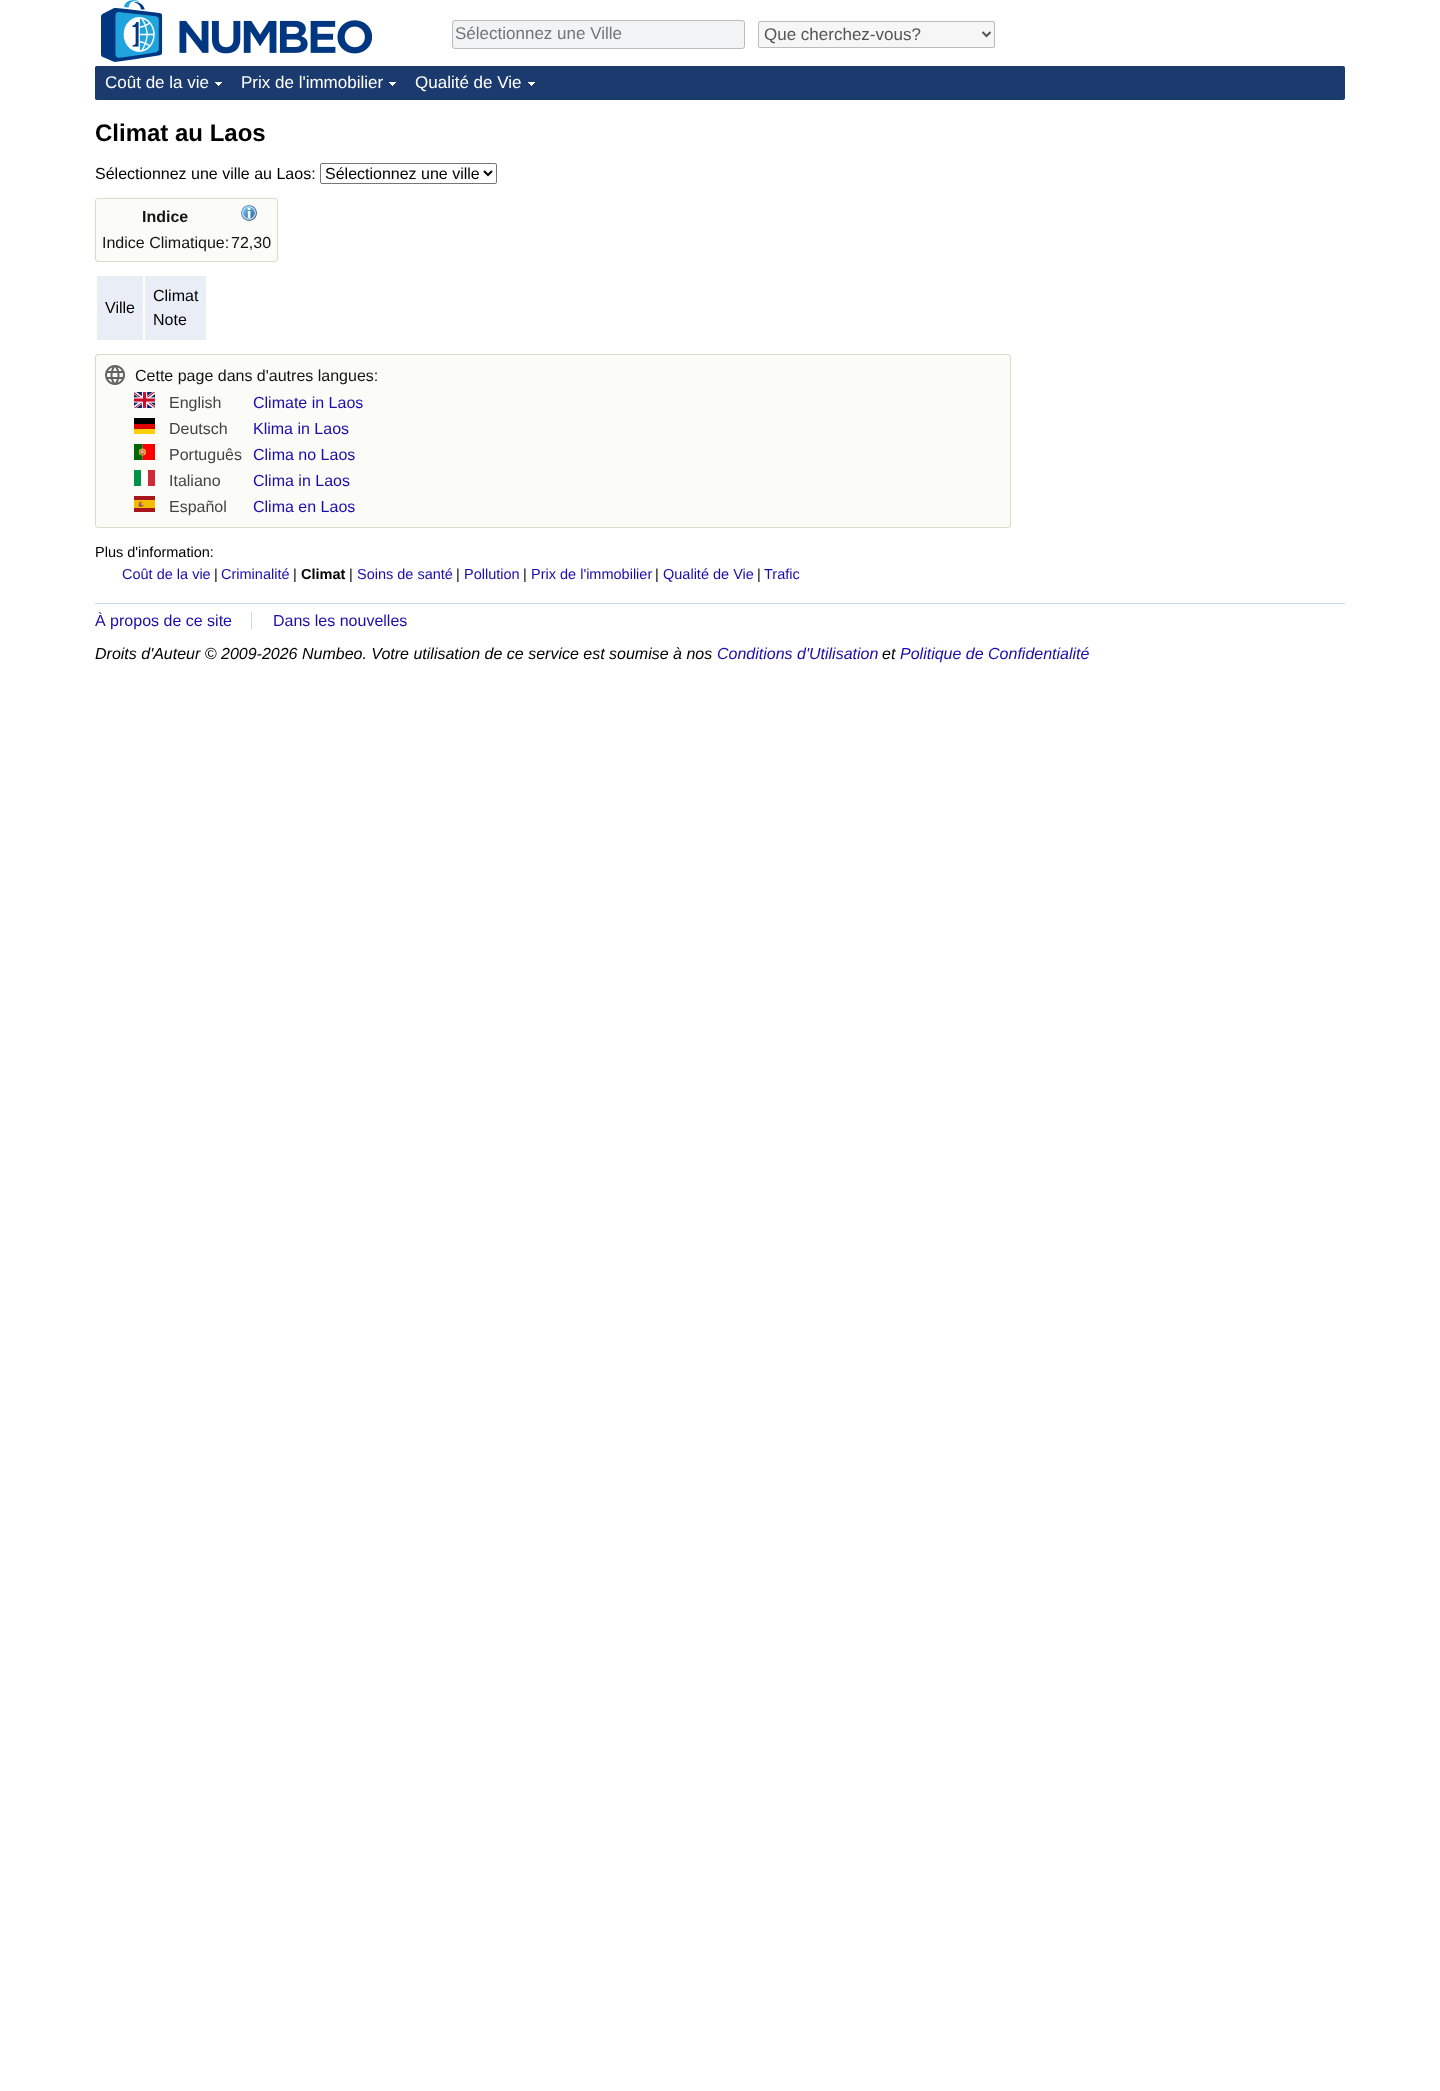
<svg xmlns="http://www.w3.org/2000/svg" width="1440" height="2091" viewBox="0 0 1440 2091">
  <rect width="100%" height="100%" fill="rgb(255,255,255)"/>
  <image x="101" y="0" width="62" height="62" href="pic1.png"/>
  <image x="179" y="20" width="193" height="34" href="pic2.png"/>
  <rect x="452.5" y="20.5" width="292" height="28" rx="2.5" fill="rgb(241,243,244)" stroke="rgb(187,187,187)"/>
  <text x="455" y="39" font-family="Liberation Sans" font-size="17" fill="rgb(117,117,117)">Sélectionnez une Ville</text>
  <rect x="758.5" y="21.5" width="236" height="26" rx="1.5" fill="rgb(246,246,246)" stroke="rgb(187,187,187)"/>
  <path d="M982.5 32L986.5 36L990.5 32" fill="none" stroke="rgb(85,85,85)" stroke-width="2"/>
  <text x="764" y="40" font-family="Liberation Sans" font-size="17" fill="rgb(85,85,85)">Que cherchez-vous?</text>
  <rect x="95" y="66" width="1250" height="34" rx="2" fill="rgb(27,59,111)"/>
  <rect x="95" y="66" width="136" height="34" rx="3" fill="rgb(27,59,111)"/>
  <image x="215" y="82" width="7" height="4" href="pic3.png"/>
  <text x="105" y="88" font-family="Liberation Sans" font-size="17" fill="rgb(255,255,255)">Coût de la vie</text>
  <image x="389" y="82" width="7" height="4" href="pic3.png"/>
  <text x="241" y="88" font-family="Liberation Sans" font-size="17" fill="rgb(255,255,255)">Prix de l'immobilier</text>
  <image x="528" y="82" width="7" height="4" href="pic3.png"/>
  <text x="415" y="88" font-family="Liberation Sans" font-size="17" fill="rgb(255,255,255)">Qualité de Vie</text>
  <text x="95" y="141" font-family="Liberation Sans" font-size="24" font-weight="bold" fill="rgb(0,0,0)">Climat au Laos</text>
  <text x="95" y="179" font-family="Liberation Sans" font-size="16" fill="rgb(0,0,0)">Sélectionnez une ville au Laos:</text>
  <rect x="320.5" y="163.5" width="176" height="20" rx="1.5" fill="none" stroke="rgb(118,118,118)"/>
  <path d="M484 171L488 175L492 171" fill="none" stroke="rgb(0,0,0)" stroke-width="2"/>
  <text x="325" y="179" font-family="Liberation Sans" font-size="16" fill="rgb(0,0,0)">Sélectionnez une ville</text>
  <rect x="95.5" y="198.5" width="182" height="63" rx="2.5" fill="rgb(251,251,248)" stroke="rgb(220,218,203)"/>
  <text x="142" y="222" font-family="Liberation Sans" font-size="16" font-weight="bold" fill="rgb(20,20,18)">Indice</text>
  <image x="241" y="205" width="16" height="16" href="pic4.png"/>
  <g font-family="Liberation Sans" font-size="16" fill="rgb(20,20,18)">
    <text x="102" y="248">Indice Climatique:</text>
    <text x="231" y="248">72,30</text>
  </g>
  <rect x="97" y="276" width="46" height="64" fill="rgb(233,238,246)"/>
  <text x="105" y="313" font-family="Liberation Sans" font-size="16" fill="rgb(0,0,0)">Ville</text>
  <rect x="145" y="276" width="61" height="64" fill="rgb(233,238,246)"/>
  <g font-family="Liberation Sans" font-size="16" fill="rgb(0,0,0)">
    <text>
      <tspan x="153" y="301">Climat</tspan>
      <tspan x="153" y="325">Note</tspan>
    </text>
  </g>
  <rect x="95.5" y="354.5" width="915" height="173" rx="2.5" fill="rgb(251,251,248)" stroke="rgb(220,218,203)"/>
  <image x="105" y="365" width="20" height="20" href="pic5.png"/>
  <text x="135" y="381" font-family="Liberation Sans" font-size="16" fill="rgb(20,20,18)">Cette page dans d'autres langues:</text>
  <image x="134" y="392" width="21" height="16" href="pic6.png"/>
  <text x="169" y="408" font-family="Liberation Sans" font-size="16" fill="rgb(68,68,68)">English</text>
  <text x="253" y="408" font-family="Liberation Sans" font-size="16" fill="rgb(26,13,171)">Climate in Laos</text>
  <rect x="134" y="418" width="21" height="6" fill="rgb(0,0,0)"/>
  <rect x="134" y="424" width="21" height="5" fill="rgb(221,0,0)"/>
  <text x="169" y="434" font-family="Liberation Sans" font-size="16" fill="rgb(68,68,68)">Deutsch</text>
  <text x="253" y="434" font-family="Liberation Sans" font-size="16" fill="rgb(26,13,171)">Klima in Laos</text>
  <rect x="134" y="429" width="21" height="5" fill="rgb(255,206,0)"/>
  <image x="134" y="444" width="21" height="16" href="pic7.png"/>
  <text x="169" y="460" font-family="Liberation Sans" font-size="16" fill="rgb(68,68,68)">Português</text>
  <text x="253" y="460" font-family="Liberation Sans" font-size="16" fill="rgb(26,13,171)">Clima no Laos</text>
  <rect x="134" y="470" width="7" height="16" fill="rgb(0,146,70)"/>
  <rect x="141" y="470" width="7" height="16" fill="rgb(255,255,255)"/>
  <rect x="148" y="470" width="7" height="16" fill="rgb(206,43,55)"/>
  <text x="169" y="486" font-family="Liberation Sans" font-size="16" fill="rgb(68,68,68)">Italiano</text>
  <text x="253" y="486" font-family="Liberation Sans" font-size="16" fill="rgb(26,13,171)">Clima in Laos</text>
  <image x="134" y="496" width="21" height="16" href="pic8.png"/>
  <text x="169" y="512" font-family="Liberation Sans" font-size="16" fill="rgb(68,68,68)">Español</text>
  <text x="253" y="512" font-family="Liberation Sans" font-size="16" fill="rgb(26,13,171)">Clima en Laos</text>
  <text x="95" y="557" font-family="Liberation Sans" font-size="14.5" fill="rgb(0,0,0)">Plus d'information:</text>
  <text x="122" y="579" font-family="Liberation Sans" font-size="14.5" fill="rgb(26,13,171)">Coût de la vie</text>
  <text x="214" y="579" font-family="Liberation Sans" font-size="14.5" fill="rgb(0,0,0)">|</text>
  <text x="221" y="579" font-family="Liberation Sans" font-size="14.5" fill="rgb(26,13,171)">Criminalité</text>
  <text x="293" y="579" font-family="Liberation Sans" font-size="14.5" fill="rgb(0,0,0)">|</text>
  <text x="301" y="579" font-family="Liberation Sans" font-size="14.5" font-weight="bold" fill="rgb(0,0,0)">Climat</text>
  <text x="349" y="579" font-family="Liberation Sans" font-size="14.5" fill="rgb(0,0,0)">|</text>
  <text x="357" y="579" font-family="Liberation Sans" font-size="14.5" fill="rgb(26,13,171)">Soins de santé</text>
  <text x="456" y="579" font-family="Liberation Sans" font-size="14.5" fill="rgb(0,0,0)">|</text>
  <text x="464" y="579" font-family="Liberation Sans" font-size="14.5" fill="rgb(26,13,171)">Pollution</text>
  <text x="523" y="579" font-family="Liberation Sans" font-size="14.5" fill="rgb(0,0,0)">|</text>
  <text x="531" y="579" font-family="Liberation Sans" font-size="14.5" fill="rgb(26,13,171)">Prix de l'immobilier</text>
  <text x="655" y="579" font-family="Liberation Sans" font-size="14.5" fill="rgb(0,0,0)">|</text>
  <text x="663" y="579" font-family="Liberation Sans" font-size="14.5" fill="rgb(26,13,171)">Qualité de Vie</text>
  <text x="757" y="579" font-family="Liberation Sans" font-size="14.5" fill="rgb(0,0,0)">|</text>
  <text x="764" y="579" font-family="Liberation Sans" font-size="14.5" fill="rgb(26,13,171)">Trafic</text>
  <rect x="95" y="603" width="1250" height="1" fill="rgb(197,219,236)"/>
  <text x="95" y="626" font-family="Liberation Sans" font-size="16" fill="rgb(26,13,171)">À propos de ce site</text>
  <rect x="251" y="612" width="1" height="17" fill="rgb(197,219,236)"/>
  <text x="273" y="626" font-family="Liberation Sans" font-size="16" fill="rgb(26,13,171)">Dans les nouvelles</text>
  <text x="95" y="659" font-family="Liberation Sans" font-size="16" font-style="italic" fill="rgb(0,0,0)">Droits d'Auteur © 2009-2026 Numbeo. Votre utilisation de ce service est soumise à nos</text>
  <text x="717" y="659" font-family="Liberation Sans" font-size="16" font-style="italic" fill="rgb(26,13,171)">Conditions d'Utilisation</text>
  <text x="882" y="659" font-family="Liberation Sans" font-size="16" font-style="italic" fill="rgb(0,0,0)">et</text>
  <text x="900" y="659" font-family="Liberation Sans" font-size="16" font-style="italic" fill="rgb(26,13,171)">Politique de Confidentialité</text>
</svg>
